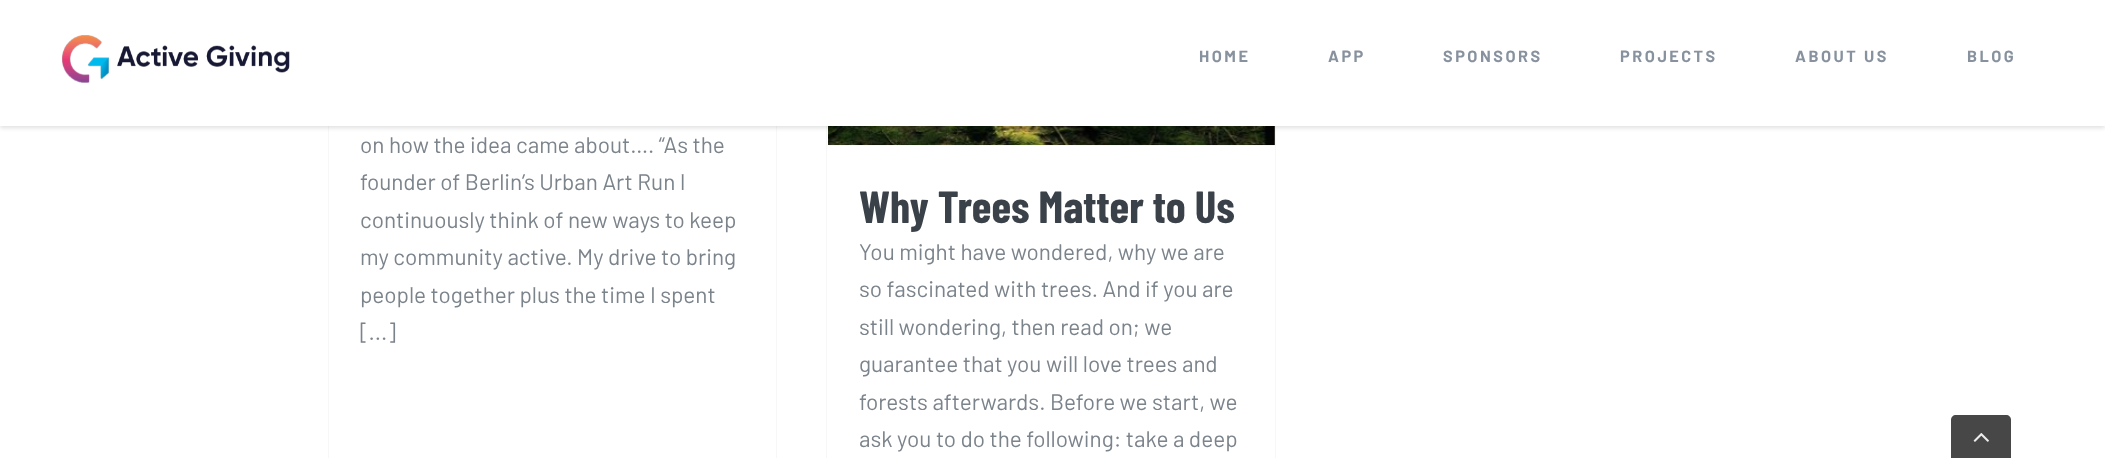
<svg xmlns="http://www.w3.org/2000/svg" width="2105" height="458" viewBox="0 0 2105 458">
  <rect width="100%" height="100%" fill="rgb(255,255,255)"/>
  <rect x="776" y="126" width="1" height="332" fill="rgb(247,247,247)"/>
  <rect x="328" y="126" width="1" height="332" fill="rgb(247,247,247)"/>
  <rect x="1275" y="126" width="1" height="332" fill="rgb(247,247,247)"/>
  <rect x="826" y="126" width="1" height="332" fill="rgb(247,247,247)"/>
  <image x="828" y="126" width="447" height="19" href="pic2.png"/>
  <rect x="0" y="1" width="2105" height="127" fill="rgba(0,0,0,0.12)" filter="blur(2px)"/>
  <rect x="0" y="0" width="2105" height="126" fill="rgb(255,255,255)"/>
  <image x="62" y="35" width="228" height="48" href="pic1.png"/>
  <g font-family="Barlow" font-size="16.25" font-weight="bold" letter-spacing="2.5" fill="rgb(136,146,158)">
    <text x="1199" y="62">HOME</text>
    <text x="1328" y="62">APP</text>
    <text x="1443" y="62">SPONSORS</text>
    <text x="1620" y="62">PROJECTS</text>
    <text x="1795" y="62">ABOUT US</text>
    <text x="1967" y="62">BLOG</text>
  </g>
  <g font-family="Barlow" font-size="22.5" fill="rgb(123,131,139)">
    <text>
      <tspan x="360" y="153">on how the idea came about…. “As the</tspan>
      <tspan x="360" y="190">founder of Berlin’s Urban Art Run I</tspan>
      <tspan x="360" y="228">continuously think of new ways to keep</tspan>
      <tspan x="360" y="265">my community active. My drive to bring</tspan>
      <tspan x="360" y="303">people together plus the time I spent</tspan>
      <tspan x="360" y="340">[...]</tspan>
    </text>
  </g>
  <rect x="828" y="145" width="447" height="1" fill="rgb(247,247,247)"/>
  <text x="859" y="223" font-family="Barlow Condensed" font-size="45" font-weight="bold" fill="rgb(58,65,73)">Why Trees Matter to Us</text>
  <g font-family="Barlow" font-size="22.5" fill="rgb(123,131,139)">
    <text>
      <tspan x="859" y="260">You might have wondered, why we are</tspan>
      <tspan x="859" y="297">so fascinated with trees. And if you are</tspan>
      <tspan x="859" y="335">still wondering, then read on; we</tspan>
      <tspan x="859" y="372">guarantee that you will love trees and</tspan>
      <tspan x="859" y="410">forests afterwards. Before we start, we</tspan>
      <tspan x="859" y="447">ask you to do the following: take a deep</tspan>
    </text>
  </g>
  <path d="M1956 415H2006C2009 415 2011 417 2011 420V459H1951V420C1951 417 1953 415 1956 415Z" fill="rgb(71,71,71)"/>
  <image x="1973" y="433" width="16" height="9" href="pic3.png"/>
</svg>
